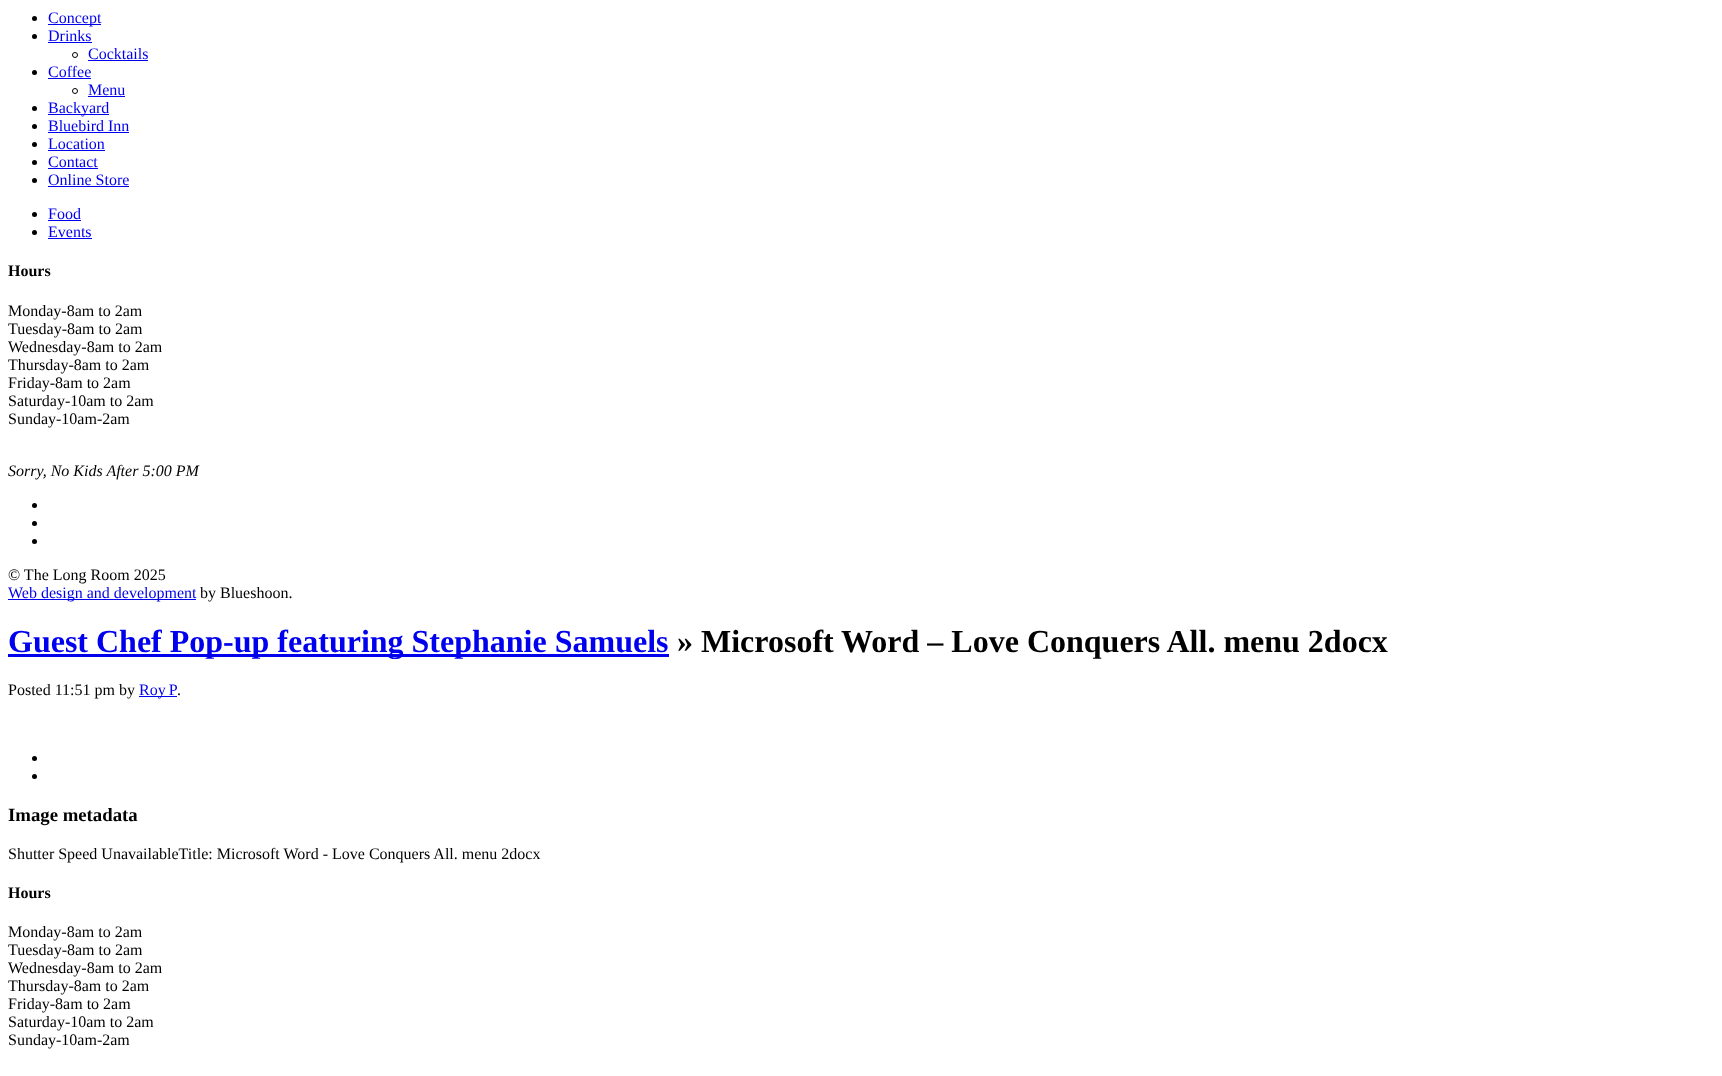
<svg xmlns="http://www.w3.org/2000/svg" width="1722" height="1076" viewBox="0 0 1722 1076">
  <rect width="100%" height="100%" fill="rgb(255,255,255)"/>
  <circle cx="34.5" cy="18.5" r="2.5" fill="rgb(0,0,0)"/>
  <rect x="48" y="24" width="53" height="1" fill="rgb(0,0,238)"/>
  <text x="48" y="23" font-family="Liberation Serif" font-size="16" fill="rgb(0,0,238)">Concept</text>
  <circle cx="34.5" cy="36.5" r="2.5" fill="rgb(0,0,0)"/>
  <text x="48" y="41" font-family="Liberation Serif" font-size="16" fill="rgb(0,0,238)">Drinks</text>
  <rect x="48" y="42" width="44" height="1" fill="rgb(0,0,238)"/>
  <circle cx="75" cy="55" r="2.5" fill="none" stroke="rgb(0,0,0)"/>
  <text x="88" y="59" font-family="Liberation Serif" font-size="16" fill="rgb(0,0,238)">Cocktails</text>
  <rect x="88" y="60" width="60" height="1" fill="rgb(0,0,238)"/>
  <circle cx="34.5" cy="72.5" r="2.5" fill="rgb(0,0,0)"/>
  <text x="48" y="77" font-family="Liberation Serif" font-size="16" fill="rgb(0,0,238)">Coffee</text>
  <rect x="48" y="78" width="43" height="1" fill="rgb(0,0,238)"/>
  <circle cx="75" cy="91" r="2.5" fill="none" stroke="rgb(0,0,0)"/>
  <text x="88" y="95" font-family="Liberation Serif" font-size="16" fill="rgb(0,0,238)">Menu</text>
  <rect x="88" y="96" width="37" height="1" fill="rgb(0,0,238)"/>
  <circle cx="34.5" cy="108.5" r="2.5" fill="rgb(0,0,0)"/>
  <rect x="48" y="114" width="61" height="1" fill="rgb(0,0,238)"/>
  <text x="48" y="113" font-family="Liberation Serif" font-size="16" fill="rgb(0,0,238)">Backyard</text>
  <circle cx="34.5" cy="126.5" r="2.5" fill="rgb(0,0,0)"/>
  <text x="48" y="131" font-family="Liberation Serif" font-size="16" fill="rgb(0,0,238)">Bluebird Inn</text>
  <rect x="48" y="132" width="81" height="1" fill="rgb(0,0,238)"/>
  <circle cx="34.5" cy="144.5" r="2.5" fill="rgb(0,0,0)"/>
  <text x="48" y="149" font-family="Liberation Serif" font-size="16" fill="rgb(0,0,238)">Location</text>
  <rect x="48" y="150" width="57" height="1" fill="rgb(0,0,238)"/>
  <circle cx="34.5" cy="162.5" r="2.5" fill="rgb(0,0,0)"/>
  <text x="48" y="167" font-family="Liberation Serif" font-size="16" fill="rgb(0,0,238)">Contact</text>
  <rect x="48" y="168" width="50" height="1" fill="rgb(0,0,238)"/>
  <circle cx="34.5" cy="180.5" r="2.5" fill="rgb(0,0,0)"/>
  <text x="48" y="185" font-family="Liberation Serif" font-size="16" fill="rgb(0,0,238)">Online Store</text>
  <rect x="48" y="186" width="81" height="1" fill="rgb(0,0,238)"/>
  <circle cx="34.5" cy="214.5" r="2.5" fill="rgb(0,0,0)"/>
  <text x="48" y="219" font-family="Liberation Serif" font-size="16" fill="rgb(0,0,238)">Food</text>
  <rect x="48" y="220" width="33" height="1" fill="rgb(0,0,238)"/>
  <circle cx="34.5" cy="232.5" r="2.5" fill="rgb(0,0,0)"/>
  <text x="48" y="237" font-family="Liberation Serif" font-size="16" fill="rgb(0,0,238)">Events</text>
  <rect x="48" y="238" width="44" height="1" fill="rgb(0,0,238)"/>
  <text x="8" y="276" font-family="Liberation Serif" font-size="16" font-weight="bold" fill="rgb(0,0,0)">Hours</text>
  <g font-family="Liberation Serif" font-size="16" fill="rgb(0,0,0)">
    <text>
      <tspan x="8" y="316">Monday-8am to 2am</tspan>
      <tspan x="8" y="334">Tuesday-8am to 2am</tspan>
      <tspan x="8" y="352">Wednesday-8am to 2am</tspan>
      <tspan x="8" y="370">Thursday-8am to 2am</tspan>
      <tspan x="8" y="388">Friday-8am to 2am</tspan>
      <tspan x="8" y="406">Saturday-10am to 2am</tspan>
      <tspan x="8" y="424">Sunday-10am-2am</tspan>
    </text>
  </g>
  <text x="8" y="476" font-family="Liberation Serif" font-size="16" font-style="italic" fill="rgb(0,0,0)">Sorry, No Kids After 5:00 PM</text>
  <circle cx="34.5" cy="505.5" r="2.5" fill="rgb(0,0,0)"/>
  <circle cx="34.5" cy="523.5" r="2.5" fill="rgb(0,0,0)"/>
  <circle cx="34.5" cy="541.5" r="2.5" fill="rgb(0,0,0)"/>
  <text x="8" y="580" font-family="Liberation Serif" font-size="16" fill="rgb(0,0,0)">© The Long Room 2025</text>
  <rect x="8" y="599" width="188" height="1" fill="rgb(0,0,238)"/>
  <text x="8" y="598" font-family="Liberation Serif" font-size="16" fill="rgb(0,0,238)">Web design and development</text>
  <text x="200" y="598" font-family="Liberation Serif" font-size="16" fill="rgb(0,0,0)">by Blueshoon.</text>
  <rect x="8" y="654" width="661" height="3" fill="rgb(0,0,238)"/>
  <text x="8" y="652" font-family="Liberation Serif" font-size="32" font-weight="bold" fill="rgb(0,0,238)">Guest Chef Pop-up featuring Stephanie Samuels</text>
  <text x="677" y="652" font-family="Liberation Serif" font-size="32" font-weight="bold" fill="rgb(0,0,0)">» Microsoft Word – Love Conquers All. menu 2docx</text>
  <text x="8" y="695" font-family="Liberation Serif" font-size="16" fill="rgb(0,0,0)">Posted 11:51 pm by</text>
  <rect x="139" y="696" width="38" height="1" fill="rgb(0,0,238)"/>
  <text x="139" y="695" word-spacing="-1" font-family="Liberation Serif" font-size="16" fill="rgb(0,0,238)">Roy P</text>
  <text x="177" y="695" font-family="Liberation Serif" font-size="16" fill="rgb(0,0,0)">.</text>
  <circle cx="34.5" cy="758.5" r="2.5" fill="rgb(0,0,0)"/>
  <circle cx="34.5" cy="776.5" r="2.5" fill="rgb(0,0,0)"/>
  <text x="8" y="821" font-family="Liberation Serif" font-size="18.75" font-weight="bold" fill="rgb(0,0,0)">Image metadata</text>
  <text x="8" y="859" font-family="Liberation Serif" font-size="16" fill="rgb(0,0,0)">Shutter Speed UnavailableTitle: Microsoft Word - Love Conquers All. menu 2docx</text>
  <text x="8" y="898" font-family="Liberation Serif" font-size="16" font-weight="bold" fill="rgb(0,0,0)">Hours</text>
  <g font-family="Liberation Serif" font-size="16" fill="rgb(0,0,0)">
    <text>
      <tspan x="8" y="937">Monday-8am to 2am</tspan>
      <tspan x="8" y="955">Tuesday-8am to 2am</tspan>
      <tspan x="8" y="973">Wednesday-8am to 2am</tspan>
      <tspan x="8" y="991">Thursday-8am to 2am</tspan>
      <tspan x="8" y="1009">Friday-8am to 2am</tspan>
      <tspan x="8" y="1027">Saturday-10am to 2am</tspan>
      <tspan x="8" y="1045">Sunday-10am-2am</tspan>
    </text>
  </g>
</svg>
